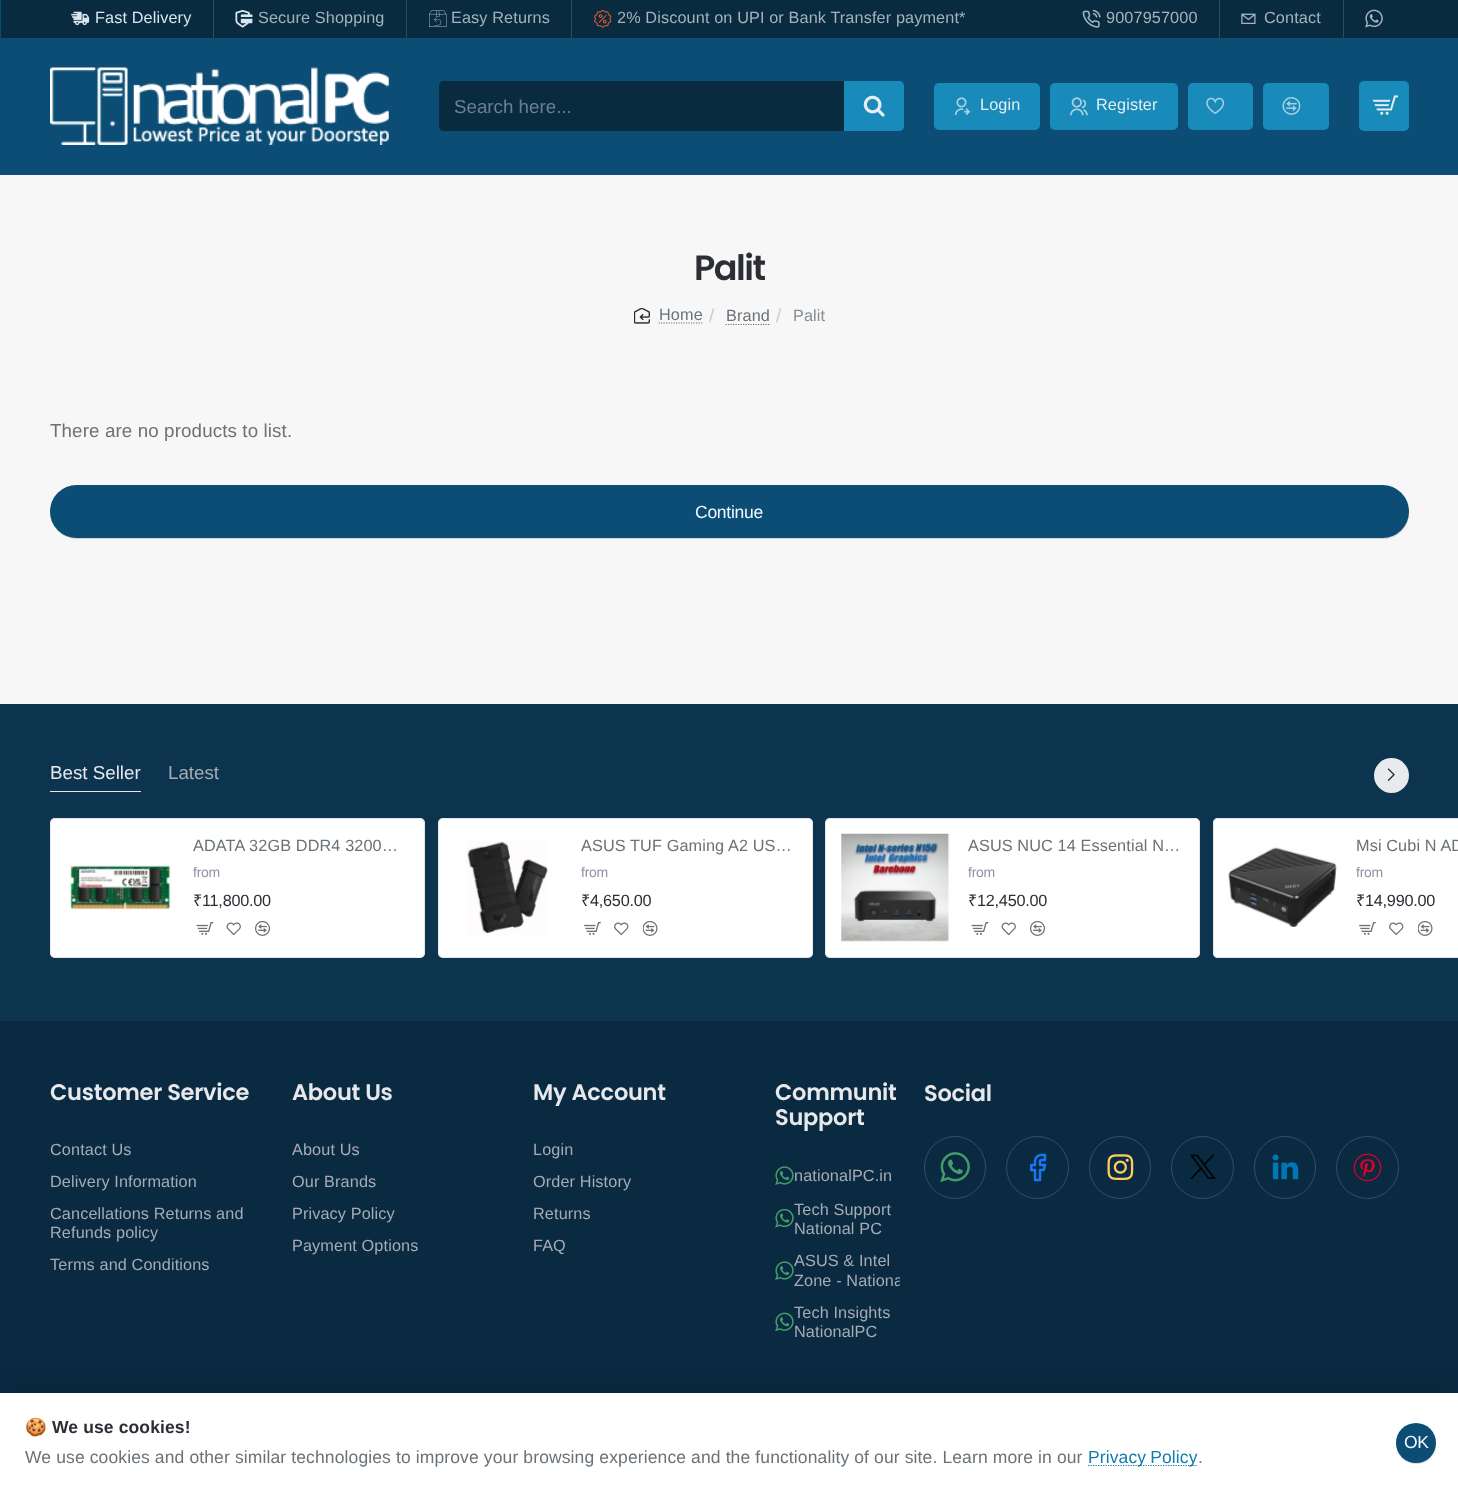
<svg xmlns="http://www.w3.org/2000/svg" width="1458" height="1491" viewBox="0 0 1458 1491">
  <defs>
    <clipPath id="clip1"><rect x="618" y="9" width="347" height="20"/></clipPath>
    <clipPath id="clip2"><rect x="794" y="1251" width="106" height="39"/></clipPath>
  </defs>
  <rect width="100%" height="100%" fill="rgb(247,247,248)"/>
  <rect x="0" y="0" width="1458" height="175" fill="rgb(12,77,117)"/>
  <rect x="1" y="0" width="1457" height="38" fill="rgb(8,43,64)"/>
  <image x="71" y="11" width="19" height="15" href="pic1.png"/>
  <text x="95" y="23" font-family="Liberation Sans" font-size="16.25" letter-spacing="0.12" fill="rgb(219,229,240)">Fast Delivery</text>
  <rect x="213" y="0" width="1" height="38" fill="rgb(56,72,91)"/>
  <image x="235" y="9" width="18" height="19" href="pic2.png"/>
  <text x="258" y="23" font-family="Liberation Sans" font-size="16.25" letter-spacing="0.12" fill="rgb(165,178,188)">Secure Shopping</text>
  <rect x="406" y="0" width="1" height="38" fill="rgb(56,72,91)"/>
  <image x="429" y="10" width="18" height="17" href="pic3.png"/>
  <text x="451" y="23" font-family="Liberation Sans" font-size="16.25" letter-spacing="0.12" fill="rgb(165,178,188)">Easy Returns</text>
  <rect x="571" y="0" width="1" height="38" fill="rgb(56,72,91)"/>
  <image x="594" y="9" width="18" height="19" href="pic4.png"/>
  <g clip-path="url(#clip1)">
    <text x="617" y="23" font-family="Liberation Sans" font-size="16.25" letter-spacing="0.12" fill="rgb(165,178,188)">2% Discount on UPI or Bank Transfer payment*</text>
  </g>
  <image x="1082" y="9" width="19" height="19" href="pic5.png"/>
  <text x="1106" y="23" font-family="Liberation Sans" font-size="16.25" letter-spacing="0.12" fill="rgb(165,178,188)">9007957000</text>
  <rect x="1219" y="0" width="1" height="38" fill="rgb(56,72,91)"/>
  <image x="1241" y="13" width="15" height="11" href="pic6.png"/>
  <text x="1264" y="23" font-family="Liberation Sans" font-size="16.25" letter-spacing="0.12" fill="rgb(165,178,188)">Contact</text>
  <rect x="1343" y="0" width="1" height="38" fill="rgb(56,72,91)"/>
  <image x="1365" y="9" width="18" height="19" href="pic7.png"/>
  <image x="50" y="67" width="339" height="78" href="pic8.png"/>
  <path d="M444 81H844V131H444C441 131 439 129 439 126V86C439 83 441 81 444 81Z" fill="rgb(8,43,64)"/>
  <text x="454" y="113" font-family="Liberation Sans" font-size="18.75" fill="rgb(106,128,142)">Search here...</text>
  <path d="M844 81H899C902 81 904 83 904 86V126C904 129 902 131 899 131H844Z" fill="rgb(24,139,186)"/>
  <image x="863" y="95" width="22" height="22" href="pic9.png"/>
  <rect x="934" y="83" width="106" height="47" rx="5" fill="rgb(24,139,186)"/>
  <image x="954" y="97" width="17" height="19" href="pic10.png"/>
  <text x="980" y="110" font-family="Liberation Sans" font-size="16.25" letter-spacing="0.12" fill="rgb(232,237,242)">Login</text>
  <rect x="1050" y="83" width="128" height="47" rx="5" fill="rgb(24,139,186)"/>
  <image x="1070" y="97" width="18" height="19" href="pic11.png"/>
  <text x="1096" y="110" font-family="Liberation Sans" font-size="16.25" letter-spacing="0.12" fill="rgb(232,237,242)">Register</text>
  <rect x="1188" y="83" width="65" height="47" rx="5" fill="rgb(24,139,186)"/>
  <image x="1206" y="97" width="19" height="17" href="pic12.png"/>
  <rect x="1263" y="83" width="66" height="47" rx="5" fill="rgb(24,139,186)"/>
  <image x="1282" y="97" width="19" height="18" href="pic13.png"/>
  <rect x="1359" y="81" width="50" height="50" rx="5" fill="rgb(24,139,186)"/>
  <image x="1372" y="95" width="27" height="20" href="pic14.png"/>
  <text x="694" y="280" font-family="Poppins" font-size="35" font-weight="600" letter-spacing="-1.5" fill="rgb(44,46,53)">Palit</text>
  <image x="634" y="308" width="16" height="16" href="pic15.png"/>
  <path d="M658.5 323H702.5M658.5 323H702.5" fill="none" stroke="rgb(105,114,120)" stroke-width="1.2" stroke-dasharray="1.25 1.25"/>
  <text x="659" y="320" font-family="Liberation Sans" font-size="16.25" letter-spacing="0.12" fill="rgb(105,114,120)">Home</text>
  <text x="709" y="322" font-family="Liberation Sans" font-size="18.75" letter-spacing="0.12" fill="rgb(204,204,204)">/</text>
  <text x="726" y="321" font-family="Liberation Sans" font-size="16.25" letter-spacing="0.12" fill="rgb(105,114,120)">Brand</text>
  <path d="M725.5 324.5H769.5" fill="none" stroke="rgb(105,114,120)" stroke-width="1.2" stroke-dasharray="1.25 1.25"/>
  <text x="776" y="322" font-family="Liberation Sans" font-size="18.75" letter-spacing="0.12" fill="rgb(204,204,204)">/</text>
  <text x="793" y="321" font-family="Liberation Sans" font-size="16.25" letter-spacing="0.12" fill="rgb(133,141,146)">Palit</text>
  <text x="50" y="437" font-family="Liberation Sans" font-size="18.75" letter-spacing="0.12" fill="rgb(105,114,120)">There are no products to list.</text>
  <rect x="55" y="491" width="1353" height="47" rx="23.5" fill="rgba(0,0,0,0.1)" filter="blur(1.5px)"/>
  <rect x="53" y="488" width="1355" height="50" rx="25" fill="rgba(0,0,0,0.1)" filter="blur(0.5px)"/>
  <rect x="50" y="486" width="1359" height="53" rx="26.5" fill="rgba(0,0,0,0.1)" filter="blur(0.5px)"/>
  <rect x="50" y="485" width="1359" height="53" rx="26.5" fill="rgb(12,77,117)"/>
  <text x="695" y="518" font-family="Liberation Sans" font-size="17.5" letter-spacing="-0.25" fill="rgb(241,248,255)">Continue</text>
  <rect x="0" y="1021" width="1458" height="372" fill="rgb(9,42,64)"/>
  <rect x="0" y="704" width="1458" height="317" fill="rgb(12,52,78)"/>
  <rect x="50" y="791" width="91" height="1" fill="rgb(230,232,235)"/>
  <text x="50" y="779" font-family="Liberation Sans" font-size="18.75" fill="rgb(230,232,235)">Best Seller</text>
  <text x="168" y="779" font-family="Liberation Sans" font-size="18.75" fill="rgb(167,171,180)">Latest</text>
  <circle cx="1391.5" cy="775.5" r="17.5" fill="rgb(232,234,238)"/>
  <image x="1387" y="768" width="8" height="13" href="pic16.png"/>
  <rect x="50" y="818" width="375" height="140" rx="5" fill="rgb(255,255,255)"/>
  <rect x="50.5" y="818.5" width="374" height="139" rx="4.5" fill="none" stroke="rgba(215,217,224,0.6)"/>
  <image x="69" y="865" width="102" height="45" href="pic17.png"/>
  <text x="193" y="851" font-family="Liberation Sans" font-size="16.25" letter-spacing="0.12" fill="rgb(105,114,120)">ADATA 32GB DDR4 3200…</text>
  <text x="193" y="877" font-family="Liberation Sans" font-size="14" letter-spacing="-0.25" fill="rgb(141,147,165)">from</text>
  <text x="193" y="906" font-family="Noto Sans" font-size="16.25" letter-spacing="-0.25" fill="rgb(44,46,53)">₹</text>
  <text x="202" y="906" font-family="Liberation Sans" font-size="16.25" letter-spacing="-0.25" fill="rgb(44,46,53)">11,800.00</text>
  <image x="196" y="922" width="18" height="13" href="pic18.png"/>
  <image x="226" y="922" width="15" height="14" href="pic19.png"/>
  <image x="255" y="921" width="15" height="15" href="pic20.png"/>
  <rect x="438" y="818" width="375" height="140" rx="5" fill="rgb(255,255,255)"/>
  <rect x="438.5" y="818.5" width="374" height="139" rx="4.5" fill="none" stroke="rgba(215,217,224,0.6)"/>
  <image x="466" y="841" width="82" height="94" href="pic21.png"/>
  <text x="581" y="851" font-family="Liberation Sans" font-size="16.25" letter-spacing="0.12" fill="rgb(105,114,120)">ASUS TUF Gaming A2 US…</text>
  <text x="581" y="877" font-family="Liberation Sans" font-size="14" letter-spacing="-0.25" fill="rgb(141,147,165)">from</text>
  <text x="581" y="906" font-family="Noto Sans" font-size="16.25" letter-spacing="-0.25" fill="rgb(44,46,53)">₹</text>
  <text x="590" y="906" font-family="Liberation Sans" font-size="16.25" letter-spacing="-0.25" fill="rgb(44,46,53)">4,650.00</text>
  <image x="584" y="922" width="17" height="13" href="pic22.png"/>
  <image x="614" y="922" width="15" height="14" href="pic23.png"/>
  <image x="643" y="921" width="15" height="15" href="pic24.png"/>
  <rect x="825" y="818" width="375" height="140" rx="5" fill="rgb(255,255,255)"/>
  <rect x="825.5" y="818.5" width="374" height="139" rx="4.5" fill="none" stroke="rgba(215,217,224,0.6)"/>
  <image x="841" y="833" width="109" height="109" href="pic25.png"/>
  <text x="968" y="851" font-family="Liberation Sans" font-size="16.25" letter-spacing="0.12" fill="rgb(105,114,120)">ASUS NUC 14 Essential N…</text>
  <text x="968" y="877" font-family="Liberation Sans" font-size="14" letter-spacing="-0.25" fill="rgb(141,147,165)">from</text>
  <text x="968" y="906" font-family="Noto Sans" font-size="16.25" letter-spacing="-0.25" fill="rgb(44,46,53)">₹</text>
  <text x="977" y="906" font-family="Liberation Sans" font-size="16.25" letter-spacing="-0.25" fill="rgb(44,46,53)">12,450.00</text>
  <image x="971" y="922" width="18" height="13" href="pic18.png"/>
  <image x="1001" y="922" width="15" height="14" href="pic19.png"/>
  <image x="1030" y="921" width="15" height="15" href="pic20.png"/>
  <path d="M1218 818H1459V958H1218C1215 958 1213 956 1213 953V823C1213 820 1215 818 1218 818Z" fill="rgb(255,255,255)"/>
  <rect x="1213.5" y="818.5" width="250" height="139" rx="4.5" fill="none" stroke="rgba(215,217,224,0.6)"/>
  <image x="1228" y="847" width="109" height="80" href="pic26.png"/>
  <text x="1356" y="851" font-family="Liberation Sans" font-size="16.25" letter-spacing="0.12" fill="rgb(105,114,120)">Msi Cubi N AD</text>
  <text x="1356" y="877" font-family="Liberation Sans" font-size="14" letter-spacing="-0.25" fill="rgb(141,147,165)">from</text>
  <text x="1356" y="906" font-family="Noto Sans" font-size="16.25" letter-spacing="-0.25" fill="rgb(44,46,53)">₹</text>
  <text x="1365" y="906" font-family="Liberation Sans" font-size="16.25" letter-spacing="-0.25" fill="rgb(44,46,53)">14,990.00</text>
  <image x="1359" y="922" width="17" height="13" href="pic22.png"/>
  <image x="1389" y="922" width="15" height="14" href="pic23.png"/>
  <image x="1418" y="921" width="15" height="15" href="pic24.png"/>
  <text x="50" y="1100" font-family="Poppins" font-size="22.5" font-weight="600" letter-spacing="-0.25" fill="rgb(230,232,235)">Customer Service</text>
  <g font-family="Liberation Sans" font-size="16.25" letter-spacing="0.12" fill="rgb(167,171,180)">
    <text>
      <tspan x="50" y="1155">Contact Us</tspan>
      <tspan x="50" y="1187">Delivery Information</tspan>
      <tspan x="50" y="1219">Cancellations Returns and</tspan>
      <tspan x="50" y="1238">Refunds policy</tspan>
      <tspan x="50" y="1270">Terms and Conditions</tspan>
    </text>
  </g>
  <text x="292" y="1100" font-family="Poppins" font-size="22.5" font-weight="600" letter-spacing="-0.25" fill="rgb(230,232,235)">About Us</text>
  <g font-family="Liberation Sans" font-size="16.25" letter-spacing="0.12" fill="rgb(167,171,180)">
    <text>
      <tspan x="292" y="1155">About Us</tspan>
      <tspan x="292" y="1187">Our Brands</tspan>
      <tspan x="292" y="1219">Privacy Policy</tspan>
      <tspan x="292" y="1251">Payment Options</tspan>
    </text>
  </g>
  <text x="533" y="1100" font-family="Poppins" font-size="22.5" font-weight="600" letter-spacing="-0.25" fill="rgb(230,232,235)">My Account</text>
  <g font-family="Liberation Sans" font-size="16.25" letter-spacing="0.12" fill="rgb(167,171,180)">
    <text>
      <tspan x="533" y="1155">Login</tspan>
      <tspan x="533" y="1187">Order History</tspan>
      <tspan x="533" y="1219">Returns</tspan>
      <tspan x="533" y="1251">FAQ</tspan>
    </text>
  </g>
  <g font-family="Poppins" font-size="22.5" font-weight="600" letter-spacing="-0.25" fill="rgb(230,232,235)">
    <text>
      <tspan x="775" y="1100">Communit</tspan>
      <tspan x="775" y="1125">Support</tspan>
    </text>
  </g>
  <image x="775" y="1166" width="19" height="19" href="pic27.png"/>
  <text x="794" y="1181" font-family="Liberation Sans" font-size="16.25" letter-spacing="0.12" fill="rgb(167,171,180)">nationalPC.in</text>
  <image x="775" y="1208" width="19" height="20" href="pic28.png"/>
  <g font-family="Liberation Sans" font-size="16.25" letter-spacing="0.12" fill="rgb(167,171,180)">
    <text>
      <tspan x="794" y="1215">Tech Support</tspan>
      <tspan x="794" y="1234">National PC</tspan>
    </text>
  </g>
  <image x="775" y="1261" width="19" height="19" href="pic27.png"/>
  <text x="794" y="1266" font-family="Liberation Sans" font-size="16.25" letter-spacing="0.12" fill="rgb(167,171,180)">ASUS &amp; Intel</text>
  <g clip-path="url(#clip2)">
    <text x="794" y="1286" font-family="Liberation Sans" font-size="16.25" letter-spacing="0.12" fill="rgb(167,171,180)">Zone - Nationa</text>
  </g>
  <image x="775" y="1312" width="19" height="20" href="pic29.png"/>
  <g font-family="Liberation Sans" font-size="16.25" letter-spacing="0.12" fill="rgb(167,171,180)">
    <text>
      <tspan x="794" y="1318">Tech Insights</tspan>
      <tspan x="794" y="1337">NationalPC</tspan>
    </text>
  </g>
  <text x="924" y="1101" font-family="Poppins" font-size="22.5" font-weight="600" letter-spacing="-0.25" fill="rgb(230,232,235)">Social</text>
  <rect x="924.5" y="1136.5" width="61" height="62" rx="30.5" fill="none" stroke="rgb(50,80,98)"/>
  <image x="940" y="1152" width="30" height="30" href="pic30.png"/>
  <circle cx="1037.5" cy="1167.5" r="31" fill="none" stroke="rgb(50,80,98)"/>
  <image x="1030" y="1153" width="17" height="29" href="pic31.png"/>
  <rect x="1089.5" y="1136.5" width="61" height="62" rx="30.5" fill="none" stroke="rgb(50,80,98)"/>
  <image x="1107" y="1154" width="27" height="26" href="pic32.png"/>
  <circle cx="1202.5" cy="1167.5" r="31" fill="none" stroke="rgb(50,80,98)"/>
  <image x="1190" y="1154" width="26" height="25" href="pic33.png"/>
  <rect x="1254.5" y="1136.5" width="61" height="62" rx="30.5" fill="none" stroke="rgb(50,80,98)"/>
  <image x="1272" y="1154" width="27" height="26" href="pic34.png"/>
  <circle cx="1367.5" cy="1167.5" r="31" fill="none" stroke="rgb(50,80,98)"/>
  <image x="1353" y="1153" width="29" height="29" href="pic35.png"/>
  <rect x="9" y="1389" width="1441" height="81" fill="rgba(0,0,0,0.1)" filter="blur(12.5px)"/>
  <rect x="0" y="1393" width="1458" height="98" fill="rgb(255,255,255)"/>
  <text x="25" y="1433" font-family="Noto Color Emoji" font-size="17.5" font-weight="bold" letter-spacing="0.12" fill="rgb(44,46,53)">🍪</text>
  <text x="52" y="1433" font-family="Liberation Sans" font-size="17.5" font-weight="bold" letter-spacing="0.12" fill="rgb(44,46,53)">We use cookies!</text>
  <text x="25" y="1463" font-family="Liberation Sans" font-size="17.5" letter-spacing="0.12" fill="rgb(105,114,120)">We use cookies and other similar technologies to improve your browsing experience and the functionality of our site. Learn more in our</text>
  <path d="M1088 1465.5H1197.5" fill="none" stroke="rgb(18,125,168)" stroke-width="1.2" stroke-dasharray="1.25 1.25"/>
  <text x="1088" y="1463" word-spacing="-1" font-family="Liberation Sans" font-size="17.5" letter-spacing="0.12" fill="rgb(18,125,168)">Privacy Policy</text>
  <text x="1198" y="1463" font-family="Liberation Sans" font-size="17.5" letter-spacing="0.12" fill="rgb(105,114,120)">.</text>
  <rect x="1401" y="1429" width="34" height="34" rx="17" fill="rgba(0,0,0,0.1)" filter="blur(1.5px)"/>
  <rect x="1399" y="1425" width="36" height="38" rx="18" fill="rgba(0,0,0,0.1)" filter="blur(0.5px)"/>
  <rect x="1396" y="1424" width="40" height="40" rx="20" fill="rgba(0,0,0,0.1)" filter="blur(0.5px)"/>
  <circle cx="1416" cy="1443" r="20" fill="rgb(12,77,117)"/>
  <text x="1404" y="1448" font-family="Liberation Sans" font-size="17.5" letter-spacing="-0.25" fill="rgb(241,248,255)">OK</text>
</svg>
